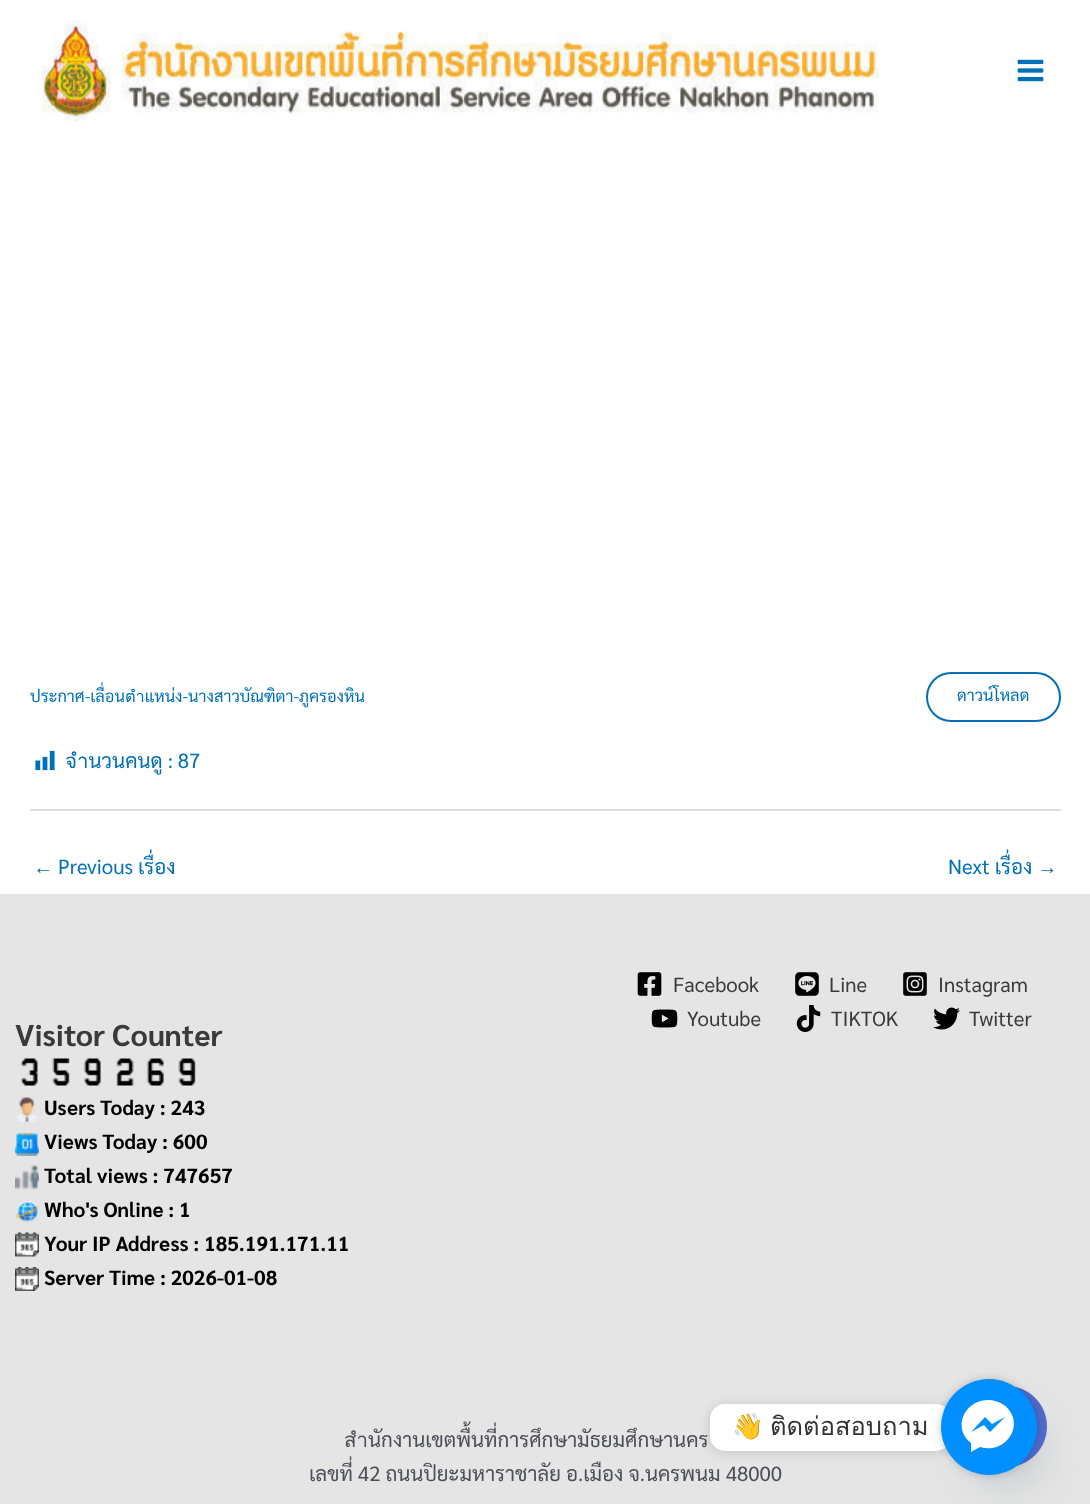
<svg xmlns="http://www.w3.org/2000/svg" width="1090" height="1504" viewBox="0 0 1090 1504">
  <rect width="100%" height="100%" fill="rgb(255,255,255)"/>
  <image x="41" y="20" width="838" height="102" href="pic1.png"/>
  <image x="1017" y="59" width="27" height="23" href="pic2.png"/>
  <text x="30" y="702" font-family="Sarabun" font-size="16.4" fill="rgb(1,112,185)">ประกาศ-เลื่อนตำแหน่ง-นางสาวบัณฑิตา-ภูครองหิน</text>
  <rect x="927" y="673" width="133" height="48" rx="24" fill="none" stroke="rgb(1,112,185)" stroke-width="2"/>
  <text x="957" y="701" font-family="Sarabun" font-size="16.4" fill="rgb(1,112,185)">ดาวน์โหลด</text>
  <image x="35" y="750" width="20" height="21" href="pic3.png"/>
  <text x="65" y="768" font-family="Sarabun" font-size="20.5" fill="rgb(1,112,185)">จำนวนคนดู : 87</text>
  <rect x="30" y="809" width="1031" height="2" fill="rgb(221,221,221)"/>
  <text x="33" y="874" font-family="Liberation Serif" font-size="20.5" fill="rgb(1,112,185)">←</text>
  <g font-family="Sarabun" font-size="20.5" fill="rgb(1,112,185)">
    <text x="58" y="874">Previous เรื่อง</text>
    <text x="948" y="874">Next เรื่อง</text>
  </g>
  <text x="1037" y="874" font-family="Liberation Serif" font-size="20.5" fill="rgb(1,112,185)">→</text>
  <rect x="0" y="894" width="1090" height="497" fill="rgb(229,229,229)"/>
  <image x="637" y="972" width="25" height="24" href="pic4.png"/>
  <text x="673" y="992" font-family="Sarabun" font-size="20.5" fill="rgb(58,58,58)">Facebook</text>
  <image x="795" y="972" width="24" height="24" href="pic5.png"/>
  <text x="829" y="992" font-family="Sarabun" font-size="20.5" fill="rgb(58,58,58)">Line</text>
  <image x="903" y="972" width="24" height="24" href="pic6.png"/>
  <text x="938" y="992" font-family="Sarabun" font-size="20.5" fill="rgb(58,58,58)">Instagram</text>
  <image x="651" y="1009" width="27" height="19" href="pic7.png"/>
  <text x="687" y="1026" font-family="Sarabun" font-size="20.5" fill="rgb(58,58,58)">Youtube</text>
  <image x="796" y="1005" width="25" height="27" href="pic8.png"/>
  <text x="831" y="1026" font-family="Sarabun" font-size="20.5" fill="rgb(58,58,58)">TIKTOK</text>
  <image x="933" y="1007" width="27" height="23" href="pic9.png"/>
  <text x="969" y="1026" font-family="Sarabun" font-size="20.5" fill="rgb(58,58,58)">Twitter</text>
  <text x="15" y="1046" font-family="Sarabun" font-size="30" font-weight="bold" fill="rgb(58,58,58)">Visitor Counter</text>
  <image x="20" y="1058" width="18" height="28" href="pic10.png"/>
  <image x="52" y="1058" width="18" height="28" href="pic11.png"/>
  <image x="83" y="1058" width="18" height="28" href="pic12.png"/>
  <image x="116" y="1058" width="18" height="28" href="pic13.png"/>
  <image x="146" y="1058" width="18" height="28" href="pic14.png"/>
  <image x="178" y="1058" width="18" height="28" href="pic15.png"/>
  <image x="15" y="1097" width="24" height="25" href="pic16.png"/>
  <text x="44" y="1115" font-family="Sarabun" font-size="20.5" font-weight="bold" fill="rgb(0,0,0)">Users Today : 243</text>
  <image x="15" y="1132" width="24" height="24" href="pic17.png"/>
  <text x="44" y="1149" font-family="Sarabun" font-size="20.5" font-weight="bold" fill="rgb(0,0,0)">Views Today : 600</text>
  <image x="15" y="1165" width="24" height="24" href="pic18.png"/>
  <text x="44" y="1183" font-family="Sarabun" font-size="20.5" font-weight="bold" fill="rgb(0,0,0)">Total views : 747657</text>
  <image x="15" y="1201" width="24" height="22" href="pic19.png"/>
  <text x="44" y="1217" font-family="Sarabun" font-size="20.5" font-weight="bold" fill="rgb(0,0,0)">Who's Online : 1</text>
  <image x="15" y="1232" width="24" height="25" href="pic20.png"/>
  <text x="44" y="1251" font-family="Sarabun" font-size="20.5" font-weight="bold" fill="rgb(0,0,0)">Your IP Address : 185.191.171.11</text>
  <image x="15" y="1267" width="24" height="24" href="pic21.png"/>
  <text x="44" y="1285" font-family="Sarabun" font-size="20.5" font-weight="bold" fill="rgb(0,0,0)">Server Time : 2026-01-08</text>
  <rect x="0" y="1391" width="1090" height="113" fill="rgb(229,229,229)"/>
  <g font-family="Sarabun" font-size="20.5" fill="rgb(75,79,88)">
    <text x="344" y="1447">สำนักงานเขตพื้นที่การศึกษามัธยมศึกษานคร</text>
    <text x="309" y="1481">เลขที่ 42 ถนนปิยะมหาราชาลัย อ.เมือง จ.นครพนม 48000</text>
  </g>
  <rect x="710" y="1406" width="241" height="46" rx="15" fill="rgba(0,0,0,0.15)" filter="blur(6px)"/>
  <rect x="710" y="1404" width="241" height="47" rx="15" fill="rgb(255,255,255)"/>
  <text x="732" y="1435" font-family="Noto Color Emoji" font-size="25.5" fill="rgb(51,51,51)">👋</text>
  <text x="770" y="1435" font-family="Loma" font-size="25.5" fill="rgb(51,51,51)">ติดต่อสอบถาม</text>
  <rect x="966" y="1410" width="81" height="81" rx="40.5" fill="rgba(73,104,126,0.16)" filter="blur(18px)"/>
  <image x="1014" y="1386" width="33" height="80" href="pic22.png"/>
  <rect x="941" y="1379" width="96" height="96" rx="48" fill="rgba(0,0,0,0.2)" filter="blur(4px)"/>
  <circle cx="989" cy="1427" r="48" fill="rgb(0,143,255)"/>
  <path d="M988 1400C964 1400 952 1429 971 1443V1452L980 1447C1006 1455 1027 1423 1004 1405C1000 1402 994 1400 988 1400ZM990 1432L984 1425L971 1432L985 1417L992 1424L1005 1417Z" fill="rgb(255,255,255)"/>
</svg>
